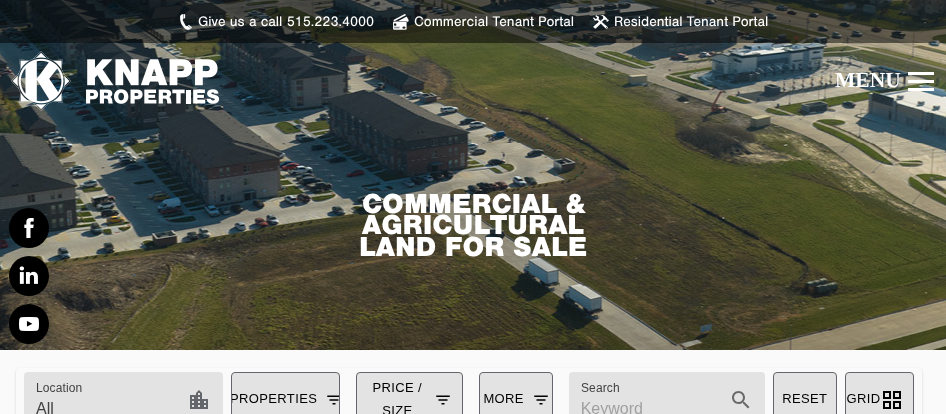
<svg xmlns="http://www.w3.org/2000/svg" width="946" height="414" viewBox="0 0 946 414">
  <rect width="100%" height="100%" fill="rgb(255,255,255)"/>
  <image x="0" y="0" width="946" height="350" href="pic8.png"/>
  <rect x="0" y="0" width="946" height="43" fill="rgba(0,0,0,0.5)"/>
  <image x="180" y="14" width="12" height="16" href="pic1.png"/>
  <text x="198" y="26" font-family="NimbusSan" font-size="14.4" fill="rgb(255,255,255)">Give us a call 515.223.4000</text>
  <image x="393" y="14" width="16" height="16" href="pic2.png"/>
  <text x="414" y="26" font-family="NimbusSan" font-size="14.4" fill="rgb(255,255,255)">Commercial Tenant Portal</text>
  <image x="593" y="15" width="16" height="14" href="pic3.png"/>
  <text x="614" y="26" font-family="NimbusSan" font-size="14.4" fill="rgb(255,255,255)">Residential Tenant Portal</text>
  <image x="11" y="51" width="209" height="60" href="pic4.png"/>
  <text x="835" y="87" font-family="Liberation Serif" font-size="21.5" font-weight="bold" fill="rgb(255,255,255)">MENU</text>
  <rect x="908" y="72" width="26" height="3" fill="rgb(255,255,255)"/>
  <rect x="908" y="80" width="26" height="3" fill="rgb(255,255,255)"/>
  <rect x="908" y="88" width="26" height="3" fill="rgb(255,255,255)"/>
  <circle cx="29" cy="228" r="20" fill="rgb(0,0,0)"/>
  <image x="24" y="218" width="10" height="20" href="pic5.png"/>
  <circle cx="29" cy="276" r="20" fill="rgb(0,0,0)"/>
  <image x="19" y="266" width="19" height="18" href="pic6.png"/>
  <circle cx="29" cy="324" r="20" fill="rgb(0,0,0)"/>
  <image x="19" y="317" width="20" height="14" href="pic7.png"/>
  <g font-family="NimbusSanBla" font-size="28.5" fill="rgb(255,255,255)">
    <text>
      <tspan x="362" y="213">COMMERCIAL &amp;</tspan>
      <tspan x="362" y="234">AGRICULTURAL</tspan>
    </text>
    <text x="359" y="256">LAND FOR SALE</text>
  </g>
  <image x="0" y="350" width="946" height="64" href="pic9.png"/>
</svg>
